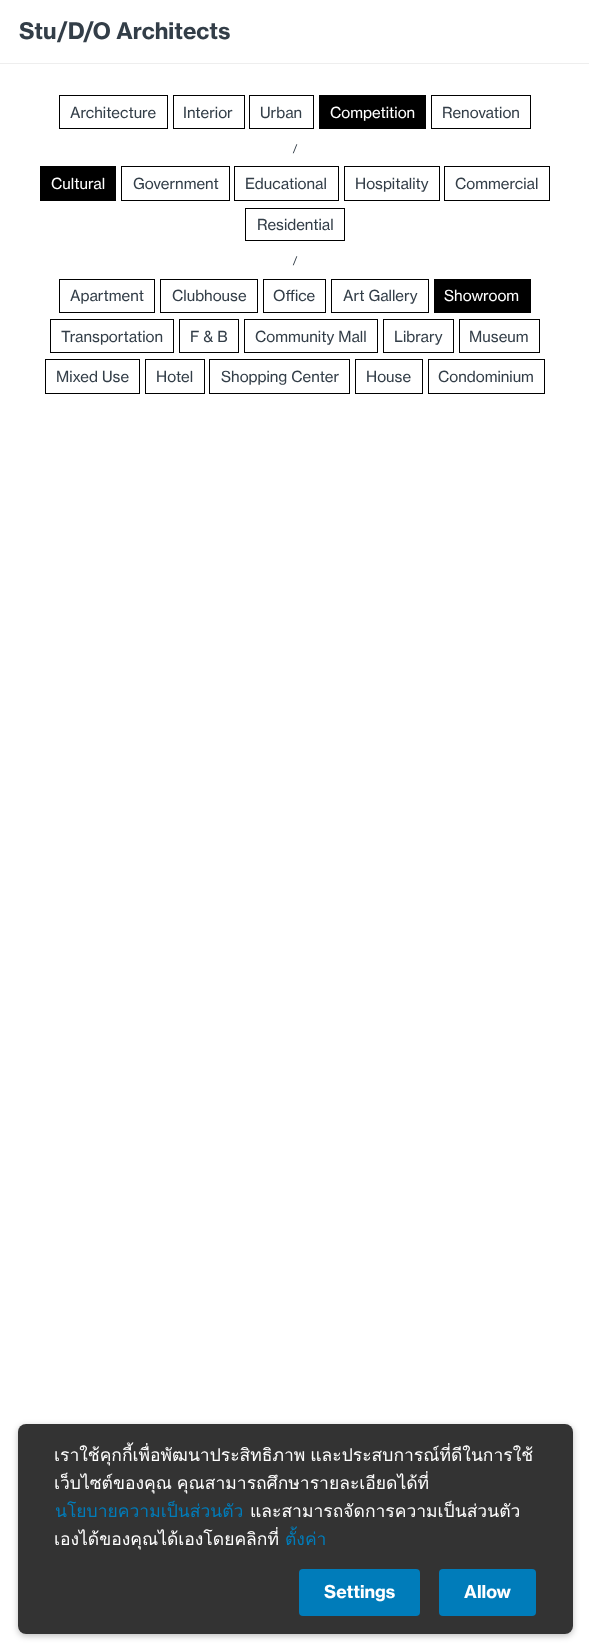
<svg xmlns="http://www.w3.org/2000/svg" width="589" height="1651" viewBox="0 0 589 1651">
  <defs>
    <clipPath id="clip1"><path d="M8 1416H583V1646H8ZM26 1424H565C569.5 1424 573 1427.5 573 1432V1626C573 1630.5 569.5 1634 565 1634H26C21.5 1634 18 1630.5 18 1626V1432C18 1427.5 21.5 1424 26 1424Z" clip-rule="evenodd"/></clipPath>
  </defs>
  <rect width="100%" height="100%" fill="rgb(255,255,255)"/>
  <rect x="0" y="63" width="589" height="1" fill="rgb(238,238,238)"/>
  <text x="19" y="39" font-family="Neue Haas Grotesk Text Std" font-size="22.5" font-weight="bold" fill="rgb(51,62,72)">Stu/D/O Architects</text>
  <rect x="59.5" y="95.5" width="108" height="33" fill="none" stroke="rgb(0,0,0)"/>
  <text x="70" y="118" font-family="Neue Haas Grotesk Text Std" font-size="15" fill="rgb(51,62,72)">Architecture</text>
  <rect x="173.5" y="95.5" width="71" height="33" fill="none" stroke="rgb(0,0,0)"/>
  <text x="183" y="118" font-family="Neue Haas Grotesk Text Std" font-size="15" fill="rgb(51,62,72)">Interior</text>
  <rect x="249.5" y="95.5" width="64" height="33" fill="none" stroke="rgb(0,0,0)"/>
  <text x="260" y="118" font-family="Neue Haas Grotesk Text Std" font-size="15" fill="rgb(51,62,72)">Urban</text>
  <rect x="319" y="95" width="107" height="34" fill="rgb(0,0,0)"/>
  <text x="330" y="118" font-family="Neue Haas Grotesk Text Std" font-size="15" fill="rgb(255,255,255)">Competition</text>
  <rect x="431.5" y="95.5" width="99" height="33" fill="none" stroke="rgb(0,0,0)"/>
  <text x="442" y="118" font-family="Neue Haas Grotesk Text Std" font-size="15" fill="rgb(51,62,72)">Renovation</text>
  <text x="293" y="152" font-family="Neue Haas Grotesk Text Std" font-size="10" fill="rgb(51,62,72)">/</text>
  <rect x="40" y="166" width="76" height="35" fill="rgb(0,0,0)"/>
  <text x="51" y="189" font-family="Neue Haas Grotesk Text Std" font-size="15" fill="rgb(255,255,255)">Cultural</text>
  <rect x="121.5" y="166.5" width="108" height="34" fill="none" stroke="rgb(0,0,0)"/>
  <text x="133" y="189" font-family="Neue Haas Grotesk Text Std" font-size="15" fill="rgb(51,62,72)">Government</text>
  <rect x="234.5" y="166.5" width="104" height="34" fill="none" stroke="rgb(0,0,0)"/>
  <text x="245" y="189" font-family="Neue Haas Grotesk Text Std" font-size="15" fill="rgb(51,62,72)">Educational</text>
  <rect x="344.5" y="166.5" width="95" height="34" fill="none" stroke="rgb(0,0,0)"/>
  <text x="355" y="189" font-family="Neue Haas Grotesk Text Std" font-size="15" fill="rgb(51,62,72)">Hospitality</text>
  <rect x="444.5" y="166.5" width="105" height="34" fill="none" stroke="rgb(0,0,0)"/>
  <text x="455" y="189" font-family="Neue Haas Grotesk Text Std" font-size="15" fill="rgb(51,62,72)">Commercial</text>
  <rect x="245.5" y="208.5" width="99" height="32" fill="none" stroke="rgb(0,0,0)"/>
  <text x="257" y="230" font-family="Neue Haas Grotesk Text Std" font-size="15" fill="rgb(51,62,72)">Residential</text>
  <text x="293" y="264" font-family="Neue Haas Grotesk Text Std" font-size="10" fill="rgb(51,62,72)">/</text>
  <rect x="59.5" y="279.5" width="95" height="33" fill="none" stroke="rgb(0,0,0)"/>
  <text x="70" y="301" font-family="Neue Haas Grotesk Text Std" font-size="15" fill="rgb(51,62,72)">Apartment</text>
  <rect x="160.5" y="279.5" width="97" height="33" fill="none" stroke="rgb(0,0,0)"/>
  <text x="172" y="301" font-family="Neue Haas Grotesk Text Std" font-size="15" fill="rgb(51,62,72)">Clubhouse</text>
  <rect x="263.5" y="279.5" width="62" height="33" fill="none" stroke="rgb(0,0,0)"/>
  <text x="273" y="301" font-family="Neue Haas Grotesk Text Std" font-size="15" fill="rgb(51,62,72)">Office</text>
  <rect x="331.5" y="279.5" width="97" height="33" fill="none" stroke="rgb(0,0,0)"/>
  <text x="343" y="301" font-family="Neue Haas Grotesk Text Std" font-size="15" fill="rgb(51,62,72)">Art Gallery</text>
  <rect x="434" y="279" width="97" height="34" fill="rgb(0,0,0)"/>
  <text x="444" y="301" font-family="Neue Haas Grotesk Text Std" font-size="15" fill="rgb(255,255,255)">Showroom</text>
  <rect x="50.5" y="319.5" width="123" height="33" fill="none" stroke="rgb(0,0,0)"/>
  <text x="61" y="342" font-family="Neue Haas Grotesk Text Std" font-size="15" fill="rgb(51,62,72)">Transportation</text>
  <rect x="179.5" y="319.5" width="59" height="33" fill="none" stroke="rgb(0,0,0)"/>
  <text x="190" y="342" font-family="Neue Haas Grotesk Text Std" font-size="15" fill="rgb(51,62,72)">F &amp; B</text>
  <rect x="244.5" y="319.5" width="133" height="33" fill="none" stroke="rgb(0,0,0)"/>
  <text x="255" y="342" font-family="Neue Haas Grotesk Text Std" font-size="15" fill="rgb(51,62,72)">Community Mall</text>
  <rect x="383.5" y="319.5" width="70" height="33" fill="none" stroke="rgb(0,0,0)"/>
  <text x="394" y="342" font-family="Neue Haas Grotesk Text Std" font-size="15" fill="rgb(51,62,72)">Library</text>
  <rect x="459.5" y="319.5" width="80" height="33" fill="none" stroke="rgb(0,0,0)"/>
  <text x="469" y="342" font-family="Neue Haas Grotesk Text Std" font-size="15" fill="rgb(51,62,72)">Museum</text>
  <rect x="45.5" y="359.5" width="94" height="34" fill="none" stroke="rgb(0,0,0)"/>
  <text x="56" y="382" font-family="Neue Haas Grotesk Text Std" font-size="15" fill="rgb(51,62,72)">Mixed Use</text>
  <rect x="145.5" y="359.5" width="59" height="34" fill="none" stroke="rgb(0,0,0)"/>
  <text x="156" y="382" font-family="Neue Haas Grotesk Text Std" font-size="15" fill="rgb(51,62,72)">Hotel</text>
  <rect x="209.5" y="359.5" width="140" height="34" fill="none" stroke="rgb(0,0,0)"/>
  <text x="221" y="382" font-family="Neue Haas Grotesk Text Std" font-size="15" fill="rgb(51,62,72)">Shopping Center</text>
  <rect x="355.5" y="359.5" width="67" height="34" fill="none" stroke="rgb(0,0,0)"/>
  <text x="366" y="382" font-family="Neue Haas Grotesk Text Std" font-size="15" fill="rgb(51,62,72)">House</text>
  <rect x="428.5" y="359.5" width="116" height="34" fill="none" stroke="rgb(0,0,0)"/>
  <text x="438" y="382" font-family="Neue Haas Grotesk Text Std" font-size="15" fill="rgb(51,62,72)">Condominium</text>
  <g clip-path="url(#clip1)">
    <rect x="18" y="1426" width="555" height="210" rx="8" fill="rgba(0,0,0,0.25)" filter="blur(3px)"/>
  </g>
  <rect x="18" y="1424" width="555" height="210" rx="8" fill="rgba(0,0,0,0.8)"/>
  <g font-family="Loma" font-size="17.5" fill="rgb(255,255,255)">
    <text>
      <tspan x="54" y="1461" word-spacing="-1">เราใช้คุกกี้เพื่อพัฒนาประสิทธิภาพ และประสบการณ์ที่ดีในการใช้</tspan>
      <tspan x="54" y="1489" word-spacing="-1">เว็บไซต์ของคุณ คุณสามารถศึกษารายละเอียดได้ที่</tspan>
    </text>
  </g>
  <text x="55" y="1517" font-family="Loma" font-size="17.5" fill="rgb(0,124,186)">นโยบายความเป็นส่วนตัว</text>
  <g font-family="Loma" font-size="17.5" fill="rgb(255,255,255)">
    <text x="250" y="1517">และสามารถจัดการความเป็นส่วนตัว</text>
    <text x="54" y="1545">เองได้ของคุณได้เองโดยคลิกที่</text>
  </g>
  <text x="285" y="1545" font-family="Loma" font-size="17.5" fill="rgb(0,124,186)">ตั้งค่า</text>
  <rect x="299" y="1569" width="121" height="47" rx="4" fill="rgb(0,124,186)"/>
  <text x="324" y="1598" font-family="Neue Haas Grotesk Text Std" font-size="17.5" font-weight="bold" fill="rgb(255,255,255)">Settings</text>
  <rect x="439" y="1569" width="97" height="47" rx="4" fill="rgb(0,124,186)"/>
  <text x="464" y="1598" font-family="Neue Haas Grotesk Text Std" font-size="17.5" font-weight="bold" fill="rgb(255,255,255)">Allow</text>
</svg>
